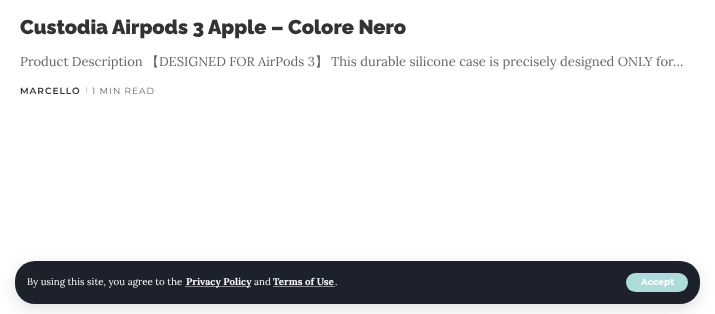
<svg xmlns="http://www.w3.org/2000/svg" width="715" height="314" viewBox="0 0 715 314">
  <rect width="100%" height="100%" fill="rgb(255,255,255)"/>
  <text x="20" y="34" font-family="Raleway" font-size="20" font-weight="900" fill="rgb(51,51,51)">Custodia Airpods 3 Apple – Colore Nero</text>
  <text x="20" y="66" font-family="Lora" font-size="13" fill="rgb(102,102,102)">Product Description</text>
  <text x="146" y="66" font-family="WenQuanYi Zen Hei" font-size="13" font-weight="500" fill="rgb(102,102,102)">【</text>
  <text x="159" y="66" font-family="Lora" font-size="13" fill="rgb(102,102,102)">DESIGNED FOR AirPods 3</text>
  <text x="315" y="66" font-family="WenQuanYi Zen Hei" font-size="13" font-weight="500" fill="rgb(102,102,102)">】</text>
  <text x="331" y="66" font-family="Lora" font-size="13" fill="rgb(102,102,102)">This durable silicone case is precisely designed ONLY for…</text>
  <text x="20" y="94" font-family="Montserrat" font-size="9" font-weight="600" letter-spacing="1" fill="rgb(51,51,51)">MARCELLO</text>
  <rect x="86" y="87" width="1" height="6" fill="rgb(209,209,209)"/>
  <text x="92" y="94" font-family="Montserrat" font-size="9" letter-spacing="1" fill="rgb(102,102,102)">1 MIN READ</text>
  <rect x="15" y="266" width="685" height="43" rx="20" fill="rgba(0,0,0,0.12)" filter="blur(7.5px)"/>
  <rect x="15" y="261" width="685" height="43" rx="20" fill="rgb(28,33,44)"/>
  <text x="27" y="285" font-family="Lora" font-size="9.75" fill="rgb(255,255,255)">By using this site, you agree to the</text>
  <path d="M185.5 286.5H251.5" fill="none" stroke="rgb(255,255,255)" stroke-dasharray="1 1"/>
  <text x="186" y="285" font-family="Lora" font-size="9.75" font-weight="bold" fill="rgb(255,255,255)">Privacy Policy</text>
  <text x="254" y="285" font-family="Lora" font-size="9.75" fill="rgb(255,255,255)">and</text>
  <text x="273" y="285" font-family="Lora" font-size="9.75" font-weight="bold" fill="rgb(255,255,255)">Terms of Use</text>
  <path d="M273.5 286.5H334.5" fill="none" stroke="rgb(255,255,255)" stroke-dasharray="1 1"/>
  <text x="335" y="285" font-family="Lora" font-size="9.75" fill="rgb(255,255,255)">.</text>
  <rect x="626" y="273" width="62" height="19" rx="9.5" fill="rgb(174,219,219)"/>
  <text x="641" y="285" font-family="Montserrat" font-size="9" font-weight="bold" fill="rgb(255,255,255)">Accept</text>
</svg>
